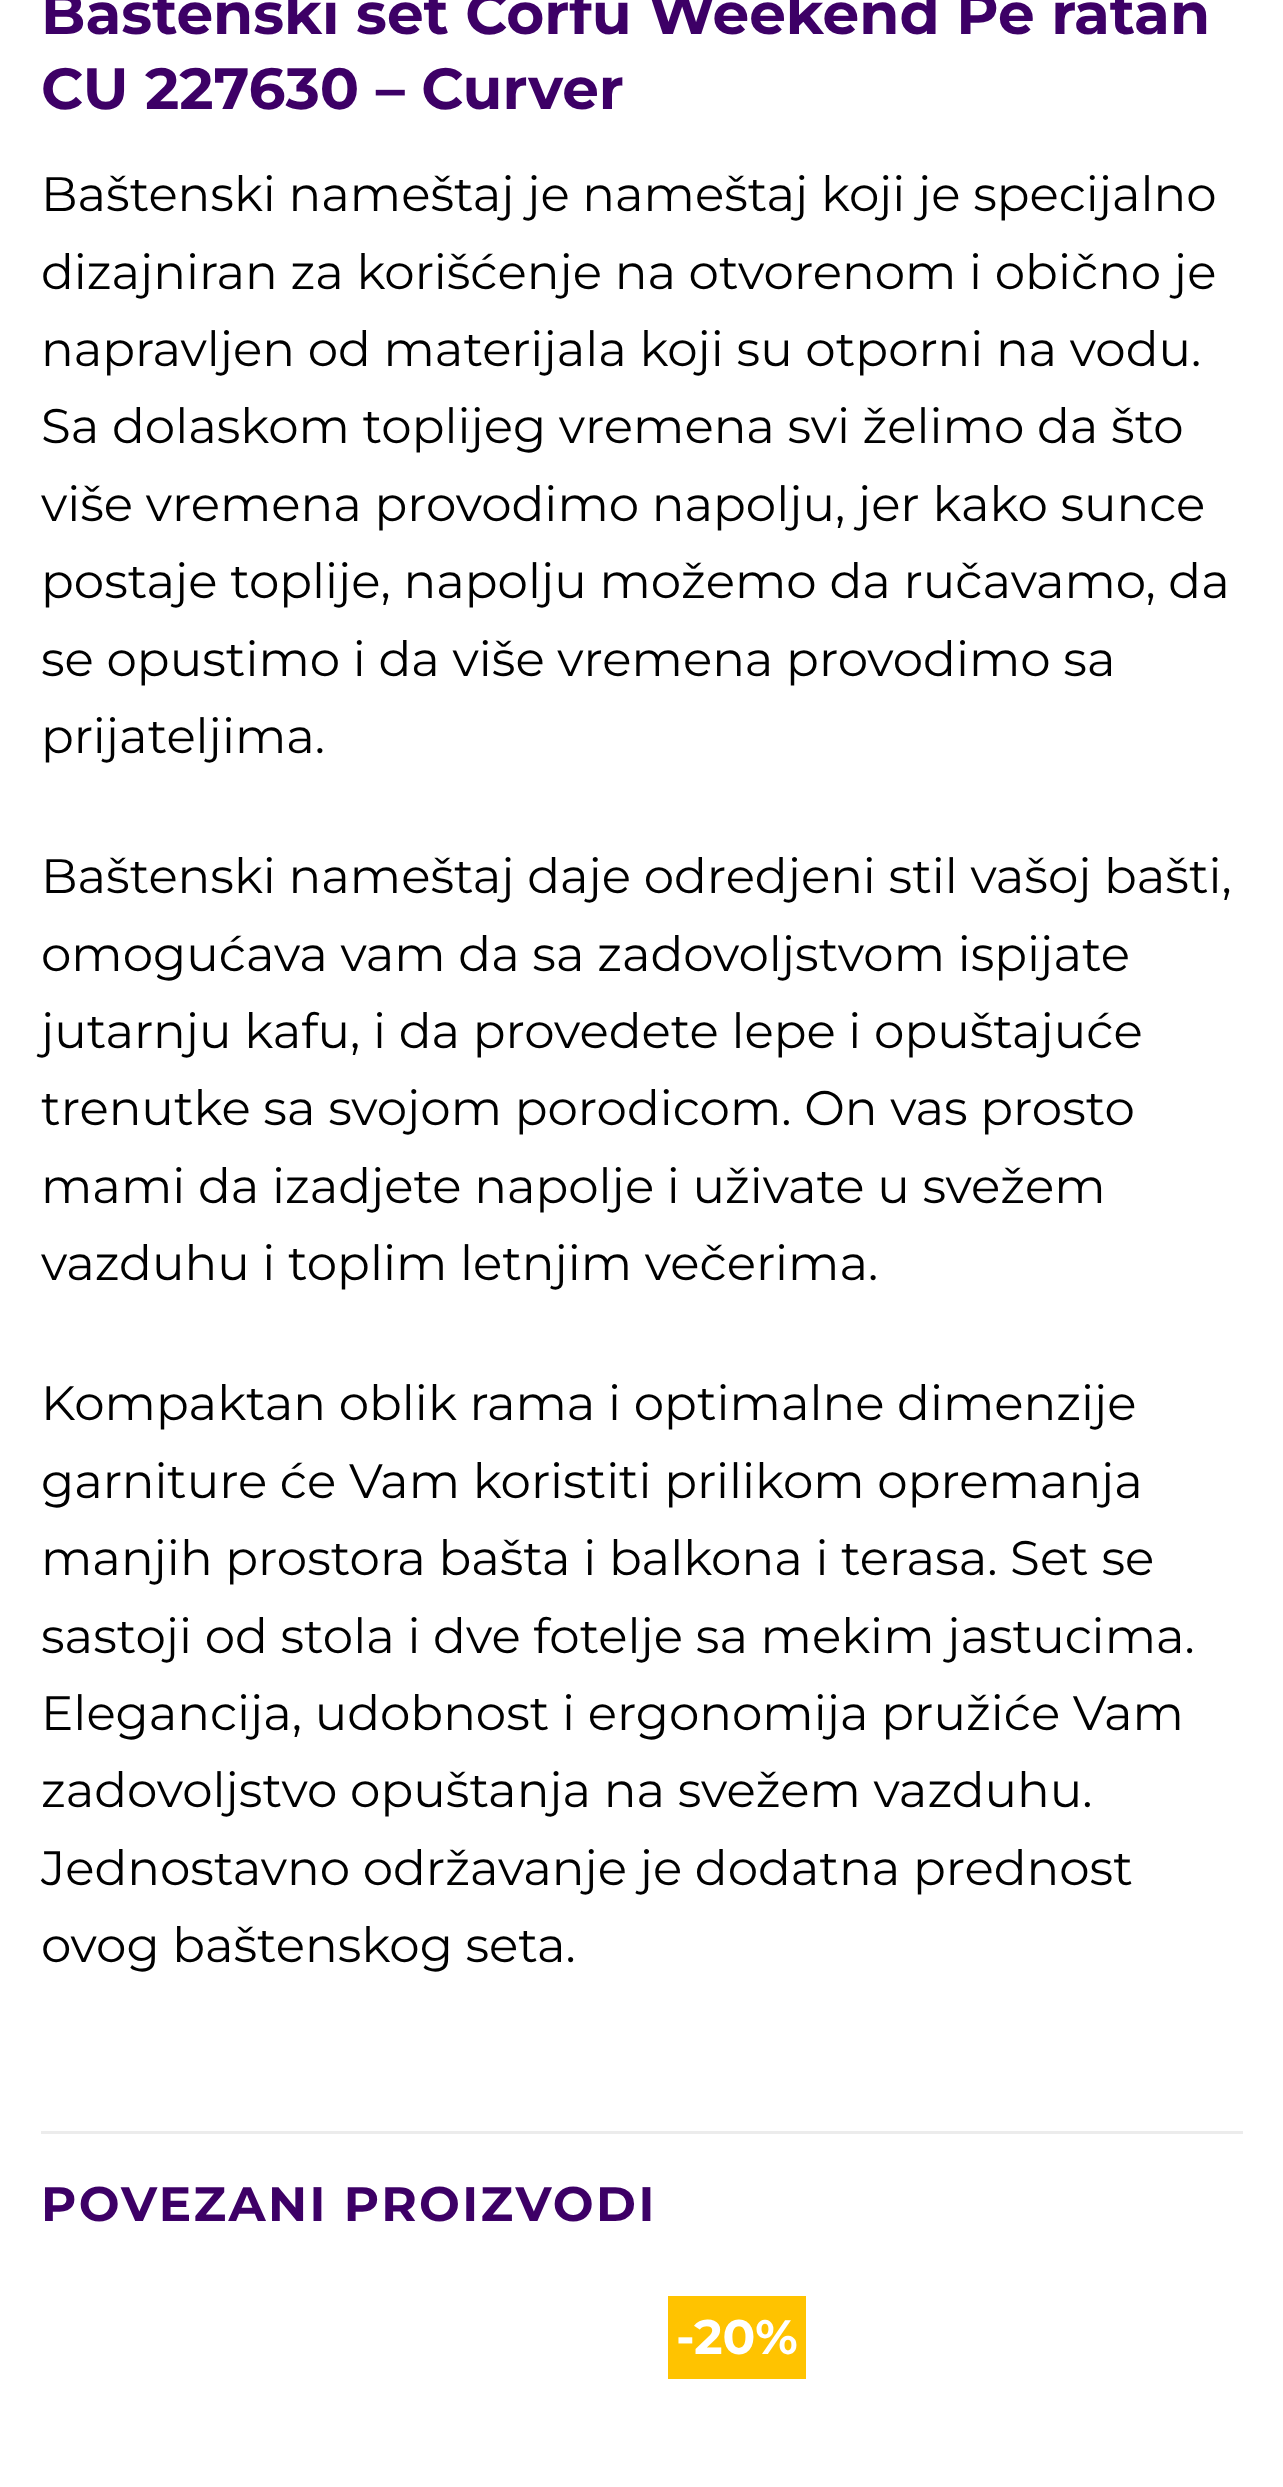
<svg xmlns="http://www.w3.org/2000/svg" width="1283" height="2487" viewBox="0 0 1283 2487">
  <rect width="100%" height="100%" fill="rgb(255,255,255)"/>
  <g font-family="Montserrat" font-size="58.1" font-weight="bold" fill="rgb(61,0,102)">
    <text>
      <tspan x="41" y="34">Baštenski set Corfu Weekend Pe ratan</tspan>
      <tspan x="41" y="109">CU 227630 – Curver</tspan>
    </text>
  </g>
  <g font-family="Montserrat" font-size="48.4" fill="rgb(0,0,0)">
    <text>
      <tspan x="41" y="211">Baštenski nameštaj je nameštaj koji je specijalno</tspan>
      <tspan x="41" y="289">dizajniran za korišćenje na otvorenom i obično je</tspan>
      <tspan x="41" y="366">napravljen od materijala koji su otporni na vodu.</tspan>
      <tspan x="41" y="443">Sa dolaskom toplijeg vremena svi želimo da što</tspan>
      <tspan x="41" y="521">više vremena provodimo napolju, jer kako sunce</tspan>
      <tspan x="41" y="598">postaje toplije, napolju možemo da ručavamo, da</tspan>
      <tspan x="41" y="676">se opustimo i da više vremena provodimo sa</tspan>
      <tspan x="41" y="753">prijateljima.</tspan>
    </text>
    <text>
      <tspan x="41" y="893">Baštenski nameštaj daje odredjeni stil vašoj bašti,</tspan>
      <tspan x="41" y="971">omogućava vam da sa zadovoljstvom ispijate</tspan>
      <tspan x="41" y="1048">jutarnju kafu, i da provedete lepe i opuštajuće</tspan>
      <tspan x="41" y="1125">trenutke sa svojom porodicom. On vas prosto</tspan>
      <tspan x="41" y="1203">mami da izadjete napolje i uživate u svežem</tspan>
      <tspan x="41" y="1280">vazduhu i toplim letnjim večerima.</tspan>
    </text>
    <text>
      <tspan x="41" y="1420">Kompaktan oblik rama i optimalne dimenzije</tspan>
      <tspan x="41" y="1498">garniture će Vam koristiti prilikom opremanja</tspan>
      <tspan x="41" y="1575">manjih prostora bašta i balkona i terasa. Set se</tspan>
      <tspan x="41" y="1653">sastoji od stola i dve fotelje sa mekim jastucima.</tspan>
      <tspan x="41" y="1730">Elegancija, udobnost i ergonomija pružiće Vam</tspan>
      <tspan x="41" y="1807">zadovoljstvo opuštanja na svežem vazduhu.</tspan>
      <tspan x="41" y="1885">Jednostavno održavanje je dodatna prednost</tspan>
      <tspan x="41" y="1962">ovog baštenskog seta.</tspan>
    </text>
  </g>
  <rect x="41" y="2131" width="1202" height="3" fill="rgb(236,236,236)"/>
  <text x="41" y="2221" font-family="Montserrat" font-size="48.4" font-weight="bold" letter-spacing="2.4" fill="rgb(61,0,102)">POVEZANI PROIZVODI</text>
  <rect x="668" y="2296" width="138" height="83" fill="rgb(255,195,0)"/>
  <text x="676" y="2354" font-family="Montserrat" font-size="48.4" font-weight="bold" fill="rgb(255,255,255)">-20%</text>
</svg>
